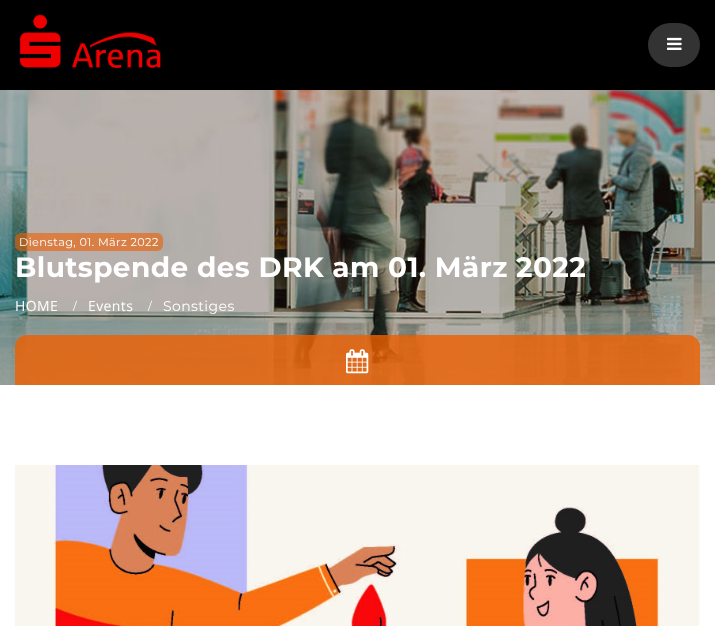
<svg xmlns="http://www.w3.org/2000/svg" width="715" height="626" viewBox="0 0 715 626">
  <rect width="100%" height="100%" fill="rgb(255,255,255)"/>
  <rect x="0" y="0" width="715" height="90" fill="rgb(0,0,0)"/>
  <image x="19" y="14" width="142" height="54" href="pic1.png"/>
  <rect x="648" y="23" width="52" height="44" rx="22" fill="rgb(51,51,51)"/>
  <image x="667" y="37" width="15" height="13" href="pic2.png"/>
  <image x="0" y="90" width="715" height="295" href="pic3.png"/>
  <rect x="15" y="233" width="148" height="18" rx="6" fill="rgba(238,95,0,0.6)"/>
  <text x="19" y="246" font-family="Montserrat" font-size="11.25" font-weight="100" letter-spacing="0.4" fill="rgb(255,255,255)">Dienstag, 01. März 2022</text>
  <text x="15" y="277" font-family="'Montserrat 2'" font-size="28" font-weight="100" letter-spacing="0.4" fill="rgb(255,255,255)">Blutspende des DRK am 01. März 2022</text>
  <text x="15" y="311" font-family="Open Sans" font-size="14" letter-spacing="0.4" fill="rgb(255,255,255)">HOME</text>
  <text x="73" y="310" font-family="Montserrat" font-size="11" font-weight="100" letter-spacing="0.4" fill="rgb(255,255,255)">/</text>
  <text x="88" y="311" font-family="Open Sans" font-size="14" letter-spacing="0.4" fill="rgb(255,255,255)">Events</text>
  <text x="148" y="310" font-family="Montserrat" font-size="11" font-weight="100" letter-spacing="0.4" fill="rgb(255,255,255)">/</text>
  <text x="163" y="311" font-family="Montserrat" font-size="14" font-weight="100" letter-spacing="0.4" fill="rgb(255,255,255)">Sonstiges</text>
  <path d="M27 335H688C694.5 335 700 340.5 700 347V385H15V347C15 340.5 20.5 335 27 335Z" fill="rgba(238,95,0,0.8)"/>
  <image x="346" y="349" width="23" height="25" href="pic4.png"/>
  <image x="15" y="465" width="685" height="161" href="pic5.png"/>
</svg>
